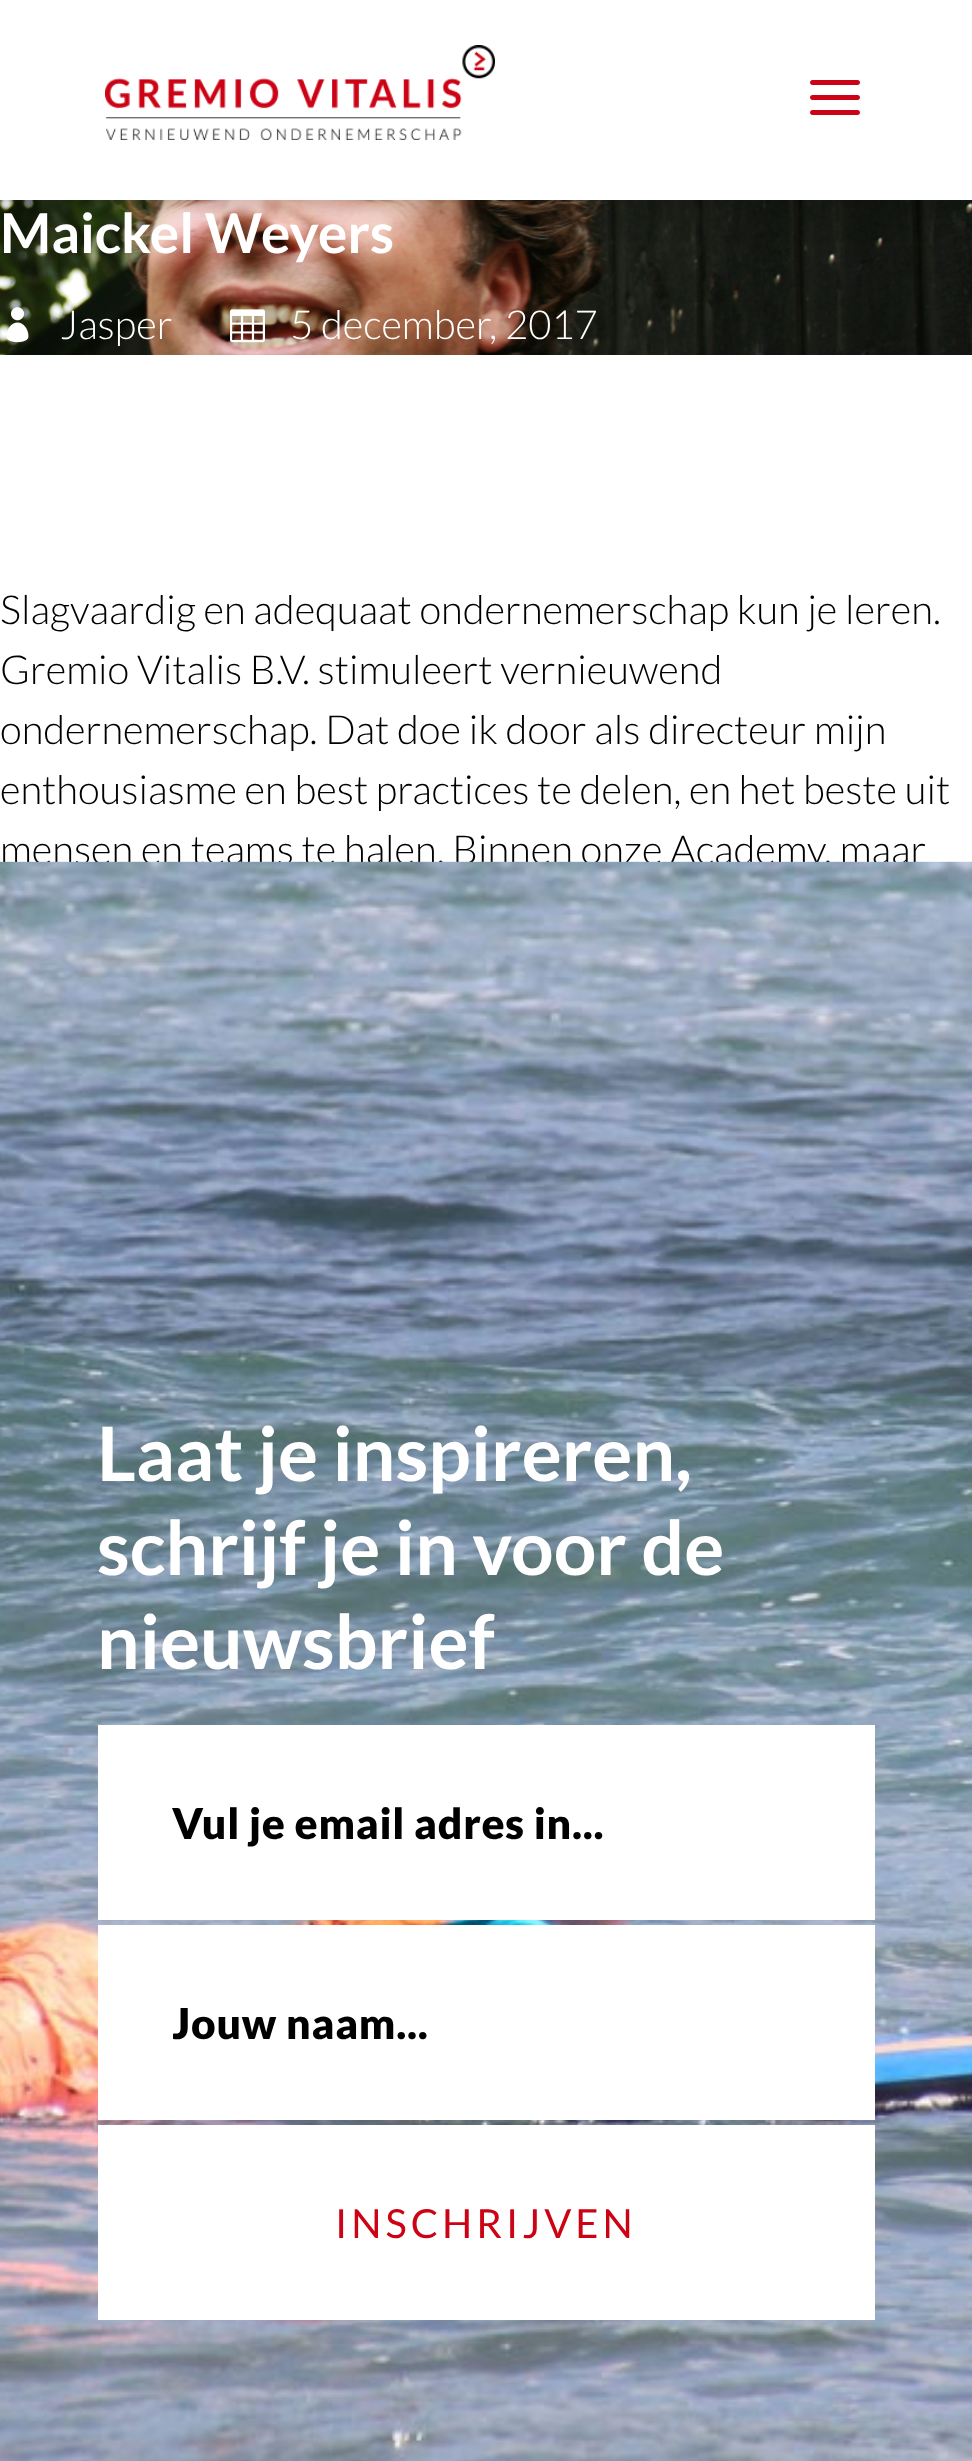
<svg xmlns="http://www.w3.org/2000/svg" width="972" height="2461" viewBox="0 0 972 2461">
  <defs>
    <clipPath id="clip1"><rect x="173" y="1998" width="627" height="52"/></clipPath>
  </defs>
  <rect width="100%" height="100%" fill="rgb(255,255,255)"/>
  <image x="0" y="200" width="972" height="155" href="pic3.png"/>
  <rect x="0" y="0" width="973" height="200" fill="rgba(0,0,0,0.3)" filter="blur(19px)"/>
  <rect x="0" y="0" width="972" height="200" fill="rgb(255,255,255)"/>
  <image x="105" y="45" width="390" height="95" href="pic1.png"/>
  <image x="810" y="80" width="50" height="35" href="pic2.png"/>
  <text x="0" y="253" font-family="Lato" font-size="55" font-weight="bold" fill="rgb(255,255,255)">Maickel Weyers</text>
  <image x="6" y="307" width="23" height="36" href="pic4.png"/>
  <text x="60" y="339" font-family="Lato" font-size="40" font-weight="300" fill="rgb(255,255,255)">Jasper</text>
  <image x="230" y="309" width="35" height="34" href="pic5.png"/>
  <text x="290" y="339" font-family="Lato" font-size="40" font-weight="300" fill="rgb(255,255,255)">5 december, 2017</text>
  <g font-family="Lato" font-size="40" font-weight="300" fill="rgb(0,0,0)">
    <text>
      <tspan x="0" y="624">Slagvaardig en adequaat ondernemerschap kun je leren.</tspan>
      <tspan x="0" y="684">Gremio Vitalis B.V. stimuleert vernieuwend</tspan>
      <tspan x="0" y="744">ondernemerschap. Dat doe ik door als directeur mijn</tspan>
      <tspan x="0" y="804">enthousiasme en best practices te delen, en het beste uit</tspan>
      <tspan x="0" y="864">mensen en teams te halen. Binnen onze Academy, maar</tspan>
    </text>
  </g>
  <image x="0" y="861" width="972" height="1600" href="pic6.png"/>
  <g font-family="Lato" font-size="75" font-weight="bold" fill="rgb(255,255,255)">
    <text>
      <tspan x="97" y="1481">Laat je inspireren,</tspan>
      <tspan x="97" y="1575">schrijf je in voor de</tspan>
      <tspan x="97" y="1669">nieuwsbrief</tspan>
    </text>
  </g>
  <rect x="98" y="1725" width="777" height="195" fill="rgb(255,255,255)"/>
  <text x="172" y="1839" font-family="Lato" font-size="42.5" font-weight="900" letter-spacing="0.75" fill="rgb(0,0,0)">Vul je email adres in...</text>
  <rect x="98" y="1925" width="777" height="195" fill="rgb(255,255,255)"/>
  <g clip-path="url(#clip1)">
    <text x="172" y="2039" font-family="Lato" font-size="42.5" font-weight="900" letter-spacing="0.75" fill="rgb(0,0,0)">Jouw naam...</text>
  </g>
  <rect x="98" y="2125" width="777" height="195" fill="rgb(255,255,255)"/>
  <text x="335" y="2238" font-family="Lato" font-size="40" letter-spacing="4" fill="rgb(204,2,21)">INSCHRIJVEN</text>
</svg>
